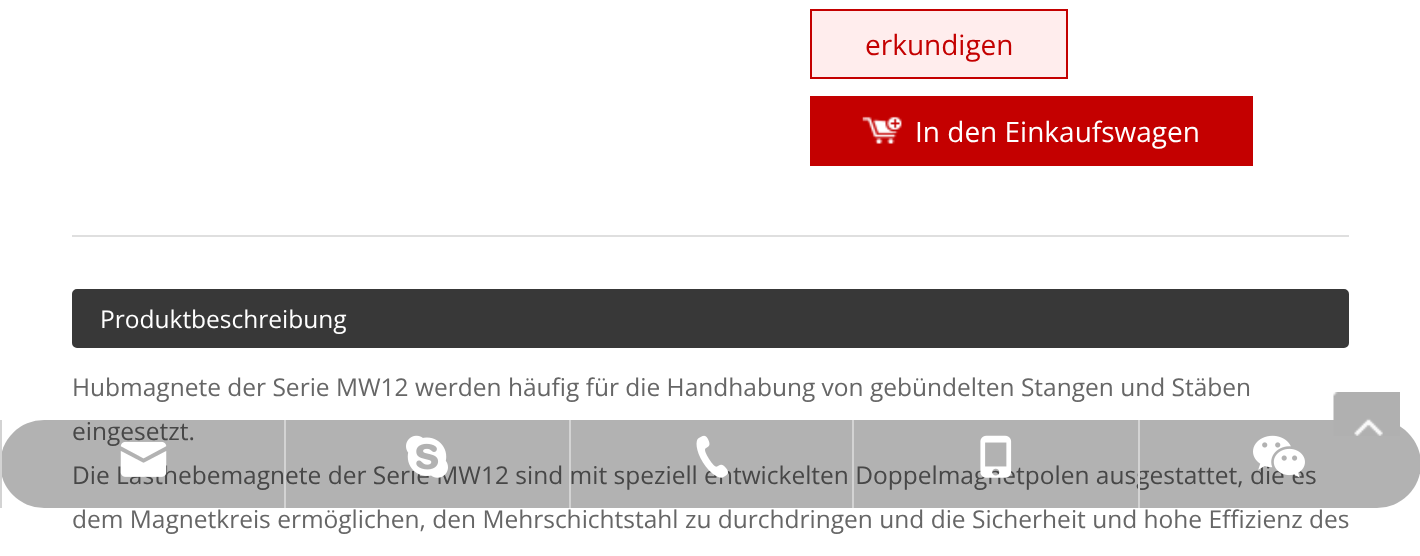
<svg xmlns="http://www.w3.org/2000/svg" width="1420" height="556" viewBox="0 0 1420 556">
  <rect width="100%" height="100%" fill="rgb(255,255,255)"/>
  <rect x="811" y="10" width="256" height="68" fill="rgb(255,237,237)" stroke="rgb(196,0,0)" stroke-width="2"/>
  <text x="865" y="55" font-family="Open Sans" font-size="28" fill="rgb(196,0,0)">erkundigen</text>
  <rect x="810" y="96" width="443" height="70" fill="rgb(196,0,0)"/>
  <image x="862" y="116" width="40" height="28" href="pic1.png"/>
  <text x="915" y="142" font-family="Open Sans" font-size="28" fill="rgb(255,255,255)">In den Einkaufswagen</text>
  <rect x="72" y="235" width="1277" height="2" fill="rgb(223,223,223)"/>
  <rect x="73" y="290" width="1275" height="57" rx="4" fill="rgb(56,56,56)" stroke="rgb(56,56,56)" stroke-width="2"/>
  <text x="100" y="328" font-family="Open Sans" font-size="24.5" fill="rgb(255,255,255)">Produktbeschreibung</text>
  <g font-family="Open Sans" font-size="24.5" fill="rgb(102,102,102)">
    <text>
      <tspan x="72" y="396">Hubmagnete der Serie MW12 werden häufig für die Handhabung von gebündelten Stangen und Stäben</tspan>
      <tspan x="72" y="440">eingesetzt.</tspan>
      <tspan x="72" y="484">Die Lasthebemagnete der Serie MW12 sind mit speziell entwickelten Doppelmagnetpolen ausgestattet, die es</tspan>
      <tspan x="72" y="528">dem Magnetkreis ermöglichen, den Mehrschichtstahl zu durchdringen und die Sicherheit und hohe Effizienz des</tspan>
    </text>
  </g>
  <rect x="0" y="420" width="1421" height="88" rx="44" fill="rgba(0,0,0,0.3)"/>
  <image x="1333" y="392" width="67" height="44" href="pic2.png"/>
  <rect x="0" y="420" width="2" height="88" fill="rgb(211,211,211)"/>
  <image x="120" y="441" width="47" height="36" href="pic3.png"/>
  <rect x="284" y="420" width="2" height="88" fill="rgb(211,211,211)"/>
  <image x="406" y="435" width="42" height="43" href="pic4.png"/>
  <rect x="569" y="420" width="2" height="88" fill="rgb(211,211,211)"/>
  <image x="696" y="435" width="32" height="43" href="pic5.png"/>
  <rect x="852" y="420" width="2" height="88" fill="rgb(211,211,211)"/>
  <image x="980" y="435" width="32" height="43" href="pic6.png"/>
  <rect x="1138" y="420" width="2" height="88" fill="rgb(211,211,211)"/>
  <image x="1253" y="435" width="52" height="43" href="pic7.png"/>
</svg>
